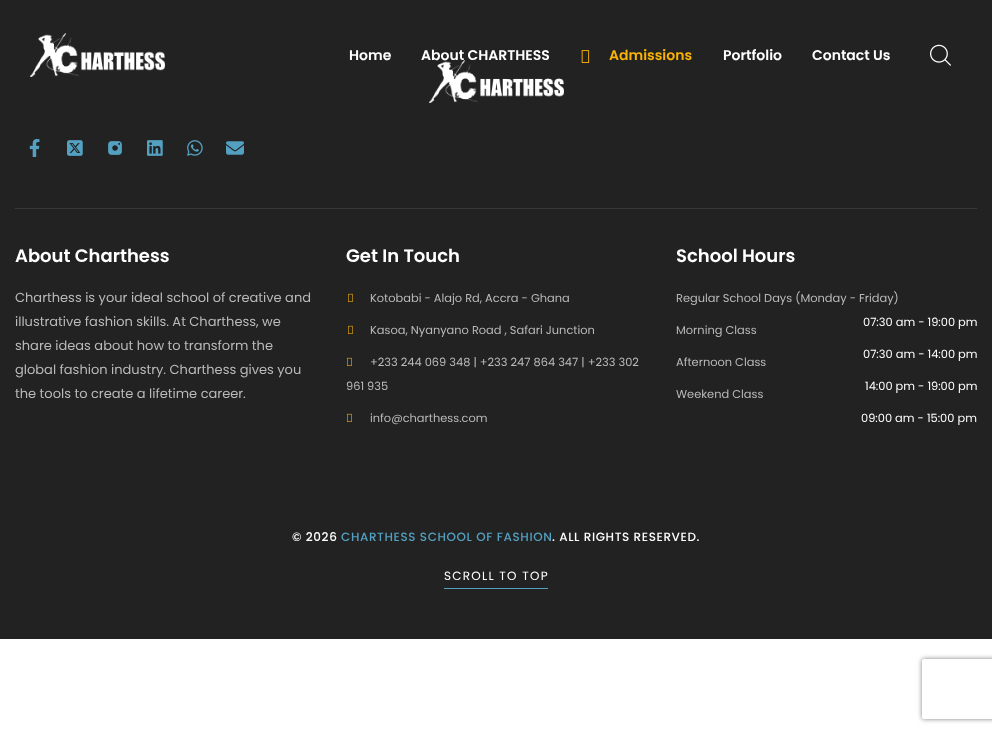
<svg xmlns="http://www.w3.org/2000/svg" width="992" height="733" viewBox="0 0 992 733">
  <defs>
    <clipPath id="clip1"><path d="M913 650H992V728H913ZM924 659H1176C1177 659 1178 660 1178 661V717C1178 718 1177 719 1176 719H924C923 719 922 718 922 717V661C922 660 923 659 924 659Z" clip-rule="evenodd"/></clipPath>
  </defs>
  <rect width="100%" height="100%" fill="rgb(255,255,255)"/>
  <rect x="0" y="0" width="992" height="639" fill="rgb(34,34,34)"/>
  <image x="30" y="33" width="135" height="44" href="pic1.png"/>
  <text x="349" y="60" font-family="Poppins" font-size="14" font-weight="600" fill="rgb(255,255,255)">Home</text>
  <image x="429" y="60" width="135" height="43" href="pic4.png"/>
  <text x="421" y="60" font-family="Poppins" font-size="14" font-weight="600" fill="rgb(255,255,255)">About CHARTHESS</text>
  <image x="581" y="50" width="9" height="13" href="pic2.png"/>
  <text x="609" y="60" font-family="Poppins" font-size="14" font-weight="600" fill="rgb(250,178,7)">Admissions</text>
  <g font-family="Poppins" font-size="14" font-weight="600" fill="rgb(255,255,255)">
    <text x="723" y="60">Portfolio</text>
    <text x="812" y="60">Contact Us</text>
  </g>
  <image x="930" y="44" width="21" height="22" href="pic3.png"/>
  <rect x="15" y="208" width="962" height="1" fill="rgb(57,57,57)"/>
  <image x="29" y="139" width="11" height="18" href="pic5.png"/>
  <image x="67" y="140" width="16" height="16" href="pic6.png"/>
  <image x="108" y="141" width="14" height="14" href="pic7.png"/>
  <image x="147" y="140" width="16" height="16" href="pic8.png"/>
  <image x="187" y="140" width="16" height="16" href="pic9.png"/>
  <image x="226" y="141" width="18" height="14" href="pic10.png"/>
  <text x="15" y="262" font-family="Poppins" font-size="18" font-weight="600" fill="rgb(255,255,255)">About Charthess</text>
  <g font-family="Poppins" font-size="13" fill="rgb(186,186,186)">
    <text>
      <tspan x="15" y="302">Charthess is your ideal school of creative and</tspan>
      <tspan x="15" y="326">illustrative fashion skills. At Charthess, we</tspan>
      <tspan x="15" y="350">share ideas about how to transform the</tspan>
      <tspan x="15" y="374">global fashion industry. Charthess gives you</tspan>
      <tspan x="15" y="398">the tools to create a lifetime career.</tspan>
    </text>
  </g>
  <text x="346" y="262" font-family="Poppins" font-size="18" font-weight="600" fill="rgb(255,255,255)">Get In Touch</text>
  <image x="348" y="293" width="5" height="9" href="pic11.png"/>
  <text x="370" y="302" font-family="Poppins" font-size="11.4" fill="rgb(186,186,186)">Kotobabi - Alajo Rd, Accra - Ghana</text>
  <image x="348" y="325" width="5" height="9" href="pic11.png"/>
  <text x="370" y="334" font-family="Poppins" font-size="11.4" fill="rgb(186,186,186)">Kasoa, Nyanyano Road , Safari Junction</text>
  <image x="347" y="357" width="5" height="9" href="pic11.png"/>
  <g font-family="Poppins" font-size="11.4" fill="rgb(186,186,186)">
    <text x="370" y="366">+233 244 069 348 | +233 247 864 347 | +233 302</text>
    <text x="346" y="390">961 935</text>
  </g>
  <image x="347" y="413" width="5" height="9" href="pic11.png"/>
  <text x="370" y="422" font-family="Poppins" font-size="11.4" fill="rgb(186,186,186)">info@charthess.com</text>
  <text x="676" y="262" font-family="Poppins" font-size="18" font-weight="600" fill="rgb(255,255,255)">School Hours</text>
  <text x="676" y="302" font-family="Poppins" font-size="11.4" fill="rgb(186,186,186)">Regular School Days (Monday - Friday)</text>
  <text x="863" y="326" font-family="Poppins" font-size="11.4" fill="rgb(255,255,255)">07:30 am - 19:00 pm</text>
  <text x="676" y="334" font-family="Poppins" font-size="11.4" fill="rgb(186,186,186)">Morning Class</text>
  <text x="863" y="358" font-family="Poppins" font-size="11.4" fill="rgb(255,255,255)">07:30 am - 14:00 pm</text>
  <text x="676" y="366" font-family="Poppins" font-size="11.4" fill="rgb(186,186,186)">Afternoon Class</text>
  <text x="865" y="390" font-family="Poppins" font-size="11.4" fill="rgb(255,255,255)">14:00 pm - 19:00 pm</text>
  <text x="676" y="398" font-family="Poppins" font-size="11.4" fill="rgb(186,186,186)">Weekend Class</text>
  <text x="861" y="422" font-family="Poppins" font-size="11.4" fill="rgb(255,255,255)">09:00 am - 15:00 pm</text>
  <text x="292" y="541" font-family="Poppins" font-size="12" font-weight="500" letter-spacing="0.6" fill="rgb(255,255,255)">© 2026</text>
  <text x="341" y="541" font-family="Poppins" font-size="12" font-weight="500" letter-spacing="0.6" fill="rgb(83,160,193)">CHARTHESS SCHOOL OF FASHION</text>
  <text x="552" y="541" font-family="Poppins" font-size="12" font-weight="500" letter-spacing="0.6" fill="rgb(255,255,255)">. ALL RIGHTS RESERVED.</text>
  <rect x="444" y="588" width="104" height="1" fill="rgb(83,160,193)"/>
  <text x="444" y="580" font-family="Poppins" font-size="12" letter-spacing="1.25" fill="rgb(255,255,255)">SCROLL TO TOP</text>
  <g clip-path="url(#clip1)">
    <rect x="922" y="659" width="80" height="60" rx="2" fill="rgb(128,128,128)" filter="blur(2.5px)"/>
  </g>
</svg>
